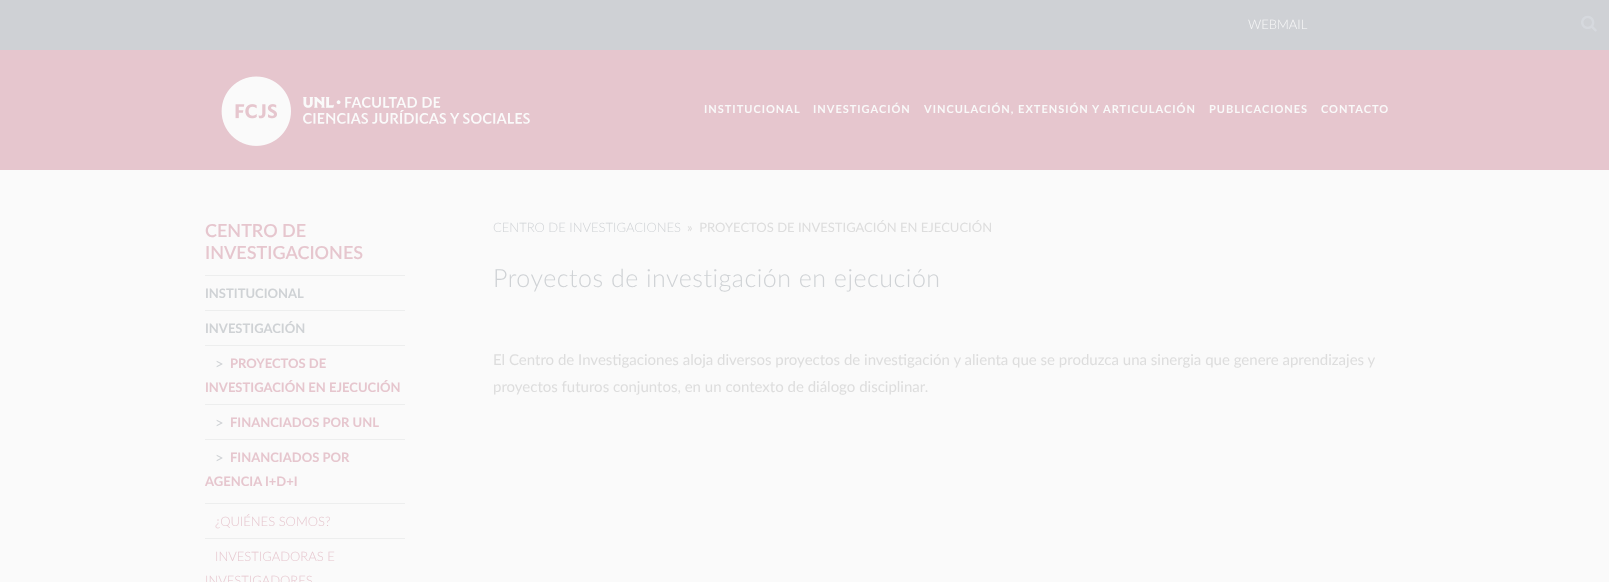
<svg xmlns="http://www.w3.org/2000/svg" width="1609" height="582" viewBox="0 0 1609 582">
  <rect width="100%" height="100%" fill="rgb(250,250,250)"/>
  <rect x="0" y="50" width="1609" height="120" fill="rgb(230,198,206)"/>
  <rect x="0" y="0" width="1609" height="50" fill="rgb(207,209,213)"/>
  <text x="1248" y="29" font-family="Lato" font-size="13" font-weight="300" fill="rgb(249,249,249)">WEBMAIL</text>
  <image x="1581" y="15" width="16" height="17" href="pic1.png"/>
  <image x="221" y="76" width="70" height="70" href="pic2.png"/>
  <image x="303" y="97" width="227" height="27" href="pic3.png"/>
  <g font-family="Lato" font-size="11" font-weight="bold" letter-spacing="1" fill="rgb(249,249,249)">
    <text x="704" y="113">INSTITUCIONAL</text>
    <text x="813" y="113">INVESTIGACIÓN</text>
    <text x="924" y="113">VINCULACIÓN, EXTENSIÓN Y ARTICULACIÓN</text>
    <text x="1209" y="113">PUBLICACIONES</text>
    <text x="1321" y="113">CONTACTO</text>
  </g>
  <g font-family="Lato" font-size="18" font-weight="600" fill="rgb(230,198,206)">
    <text>
      <tspan x="205" y="237">CENTRO DE</tspan>
      <tspan x="205" y="259">INVESTIGACIONES</tspan>
    </text>
  </g>
  <rect x="205" y="275" width="200" height="1" fill="rgb(237,238,238)"/>
  <text x="205" y="298" font-family="Lato" font-size="13" font-weight="bold" fill="rgb(207,210,213)">INSTITUCIONAL</text>
  <rect x="205" y="310" width="200" height="1" fill="rgb(237,238,238)"/>
  <text x="205" y="333" font-family="Lato" font-size="13" font-weight="bold" fill="rgb(207,210,213)">INVESTIGACIÓN</text>
  <rect x="205" y="345" width="200" height="1" fill="rgb(237,238,238)"/>
  <text x="215" y="369" font-family="Lato" font-size="15" fill="rgb(207,210,213)">&gt;</text>
  <g font-family="Lato" font-size="13" font-weight="bold" fill="rgb(230,198,206)">
    <text x="230" y="368">PROYECTOS DE</text>
    <text x="205" y="392">INVESTIGACIÓN EN EJECUCIÓN</text>
  </g>
  <rect x="205" y="404" width="200" height="1" fill="rgb(237,238,238)"/>
  <text x="215" y="428" font-family="Lato" font-size="15" fill="rgb(207,210,213)">&gt;</text>
  <text x="230" y="427" font-family="Lato" font-size="13" font-weight="bold" fill="rgb(230,198,206)">FINANCIADOS POR UNL</text>
  <rect x="205" y="439" width="200" height="1" fill="rgb(237,238,238)"/>
  <text x="215" y="463" font-family="Lato" font-size="15" fill="rgb(207,210,213)">&gt;</text>
  <g font-family="Lato" font-size="13" font-weight="bold" fill="rgb(230,198,206)">
    <text x="230" y="462">FINANCIADOS POR</text>
    <text x="205" y="486">AGENCIA I+D+I</text>
  </g>
  <rect x="205" y="503" width="200" height="1" fill="rgb(237,238,238)"/>
  <text x="215" y="526" font-family="Lato" font-size="13" font-weight="300" fill="rgb(230,198,206)">¿QUIÉNES SOMOS?</text>
  <rect x="205" y="538" width="200" height="1" fill="rgb(237,238,238)"/>
  <g font-family="Lato" font-size="13" font-weight="300" fill="rgb(230,198,206)">
    <text x="215" y="561">INVESTIGADORAS E</text>
    <text x="205" y="585">INVESTIGADORES</text>
  </g>
  <text x="493" y="232" font-family="Lato" font-size="13" font-weight="300" fill="rgb(207,210,213)">CENTRO DE INVESTIGACIONES</text>
  <text x="687" y="232" font-family="Lato" font-size="13" fill="rgb(221,221,221)" xml:space="preserve">»  PROYECTOS DE INVESTIGACIÓN EN EJECUCIÓN</text>
  <text x="493" y="287" font-family="Lato" font-size="25" font-weight="300" letter-spacing="0.5" fill="rgb(207,210,213)">Proyectos de investigación en ejecución</text>
  <g font-family="Lato" font-size="15" fill="rgb(221,221,221)">
    <text>
      <tspan x="493" y="365">El Centro de Investigaciones aloja diversos proyectos de investigación y alienta que se produzca una sinergia que genere aprendizajes y</tspan>
      <tspan x="493" y="392">proyectos futuros conjuntos, en un contexto de diálogo disciplinar.</tspan>
    </text>
  </g>
</svg>
